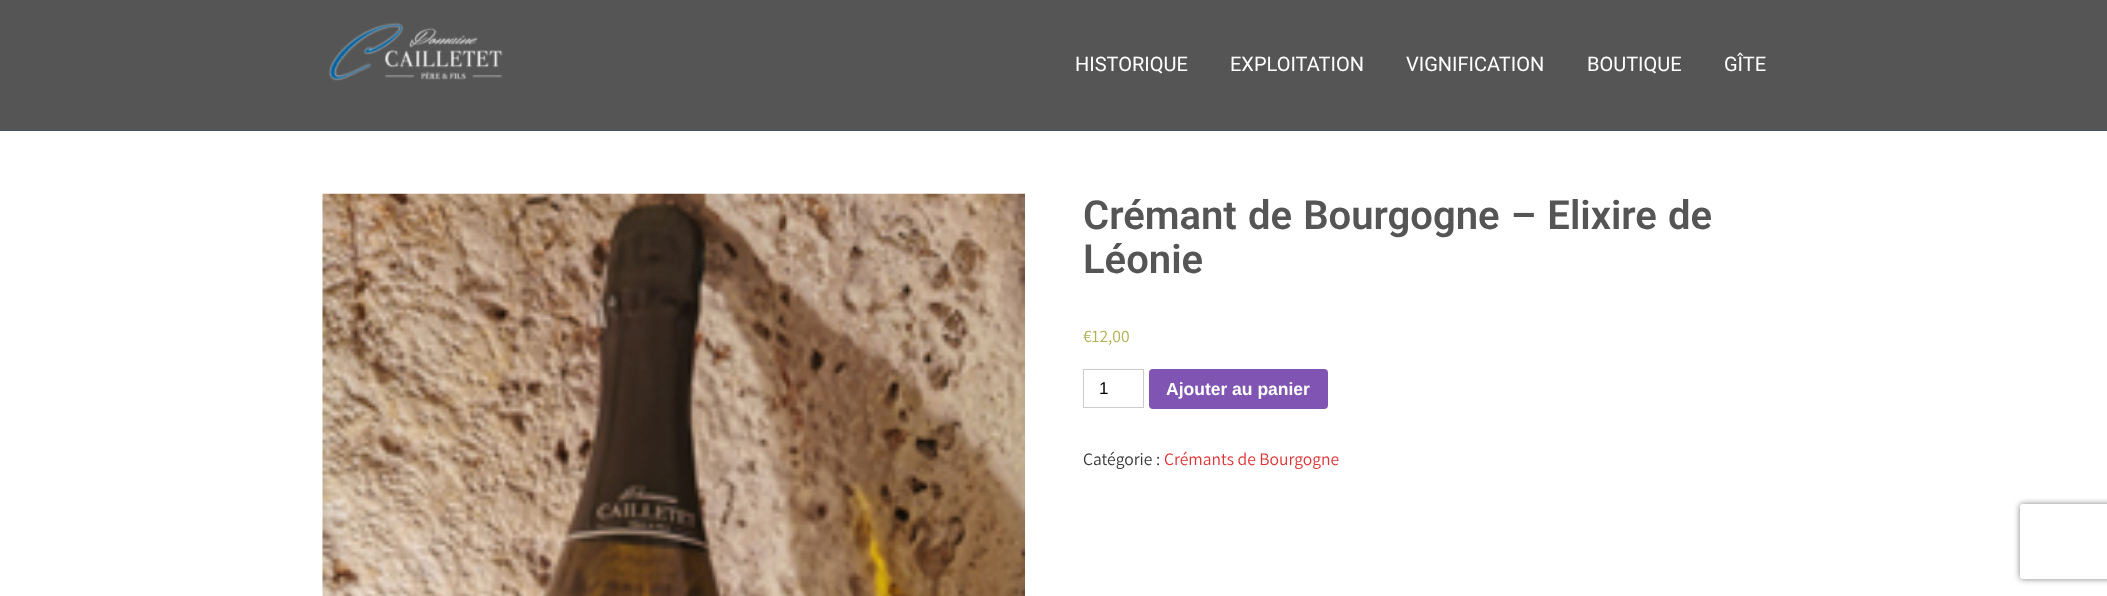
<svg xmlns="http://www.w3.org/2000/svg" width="2107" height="596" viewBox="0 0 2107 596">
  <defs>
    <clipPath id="clip1"><path d="M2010 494H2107V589H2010ZM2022.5 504H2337.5C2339 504 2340 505 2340 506.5V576.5C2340 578 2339 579 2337.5 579H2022.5C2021 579 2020 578 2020 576.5V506.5C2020 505 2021 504 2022.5 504Z" clip-rule="evenodd"/></clipPath>
  </defs>
  <rect width="100%" height="100%" fill="rgb(255,255,255)"/>
  <rect x="0" y="0" width="2107" height="130" fill="rgb(85,85,85)"/>
  <rect x="0" y="130" width="2107" height="1" fill="rgb(70,83,97)"/>
  <image x="328" y="22" width="175" height="59" href="pic1.png"/>
  <g font-family="Roboto" font-size="20" fill="rgb(255,255,255)">
    <text x="1075" y="71">HISTORIQUE</text>
    <text x="1230" y="71">EXPLOITATION</text>
    <text x="1406" y="71">VIGNIFICATION</text>
    <text x="1587" y="71">BOUTIQUE</text>
    <text x="1724" y="71">GÎTE</text>
  </g>
  <image x="322" y="193" width="703" height="403" href="pic2.png"/>
  <g font-family="Roboto" font-size="40" font-weight="600" fill="rgb(85,85,85)">
    <text>
      <tspan x="1083" y="229" word-spacing="1.25">Crémant de Bourgogne – Elixire de</tspan>
      <tspan x="1083" y="273">Léonie</tspan>
    </text>
  </g>
  <text x="1083" y="342" font-family="Assistant" font-size="17.5" fill="rgb(179,175,84)">€12,00</text>
  <rect x="1083.5" y="369.5" width="60" height="38" fill="none" stroke="rgb(204,204,204)"/>
  <text x="1099" y="394" font-family="Liberation Sans" font-size="17" fill="rgb(0,0,0)">1</text>
  <rect x="1149" y="369" width="179" height="40" rx="4" fill="rgb(127,84,179)"/>
  <text x="1166" y="395" font-family="Liberation Sans" font-size="17.5" font-weight="bold" fill="rgb(255,255,255)">Ajouter au panier</text>
  <text x="1083" y="465" font-family="Assistant" font-size="17.5" fill="rgb(54,54,54)">Catégorie :</text>
  <text x="1164" y="465" font-family="Assistant" font-size="17.5" fill="rgb(221,51,51)">Crémants de Bourgogne</text>
  <g clip-path="url(#clip1)">
    <rect x="2020" y="504" width="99" height="75" rx="2.5" fill="rgb(128,128,128)" filter="blur(3px)"/>
  </g>
</svg>
